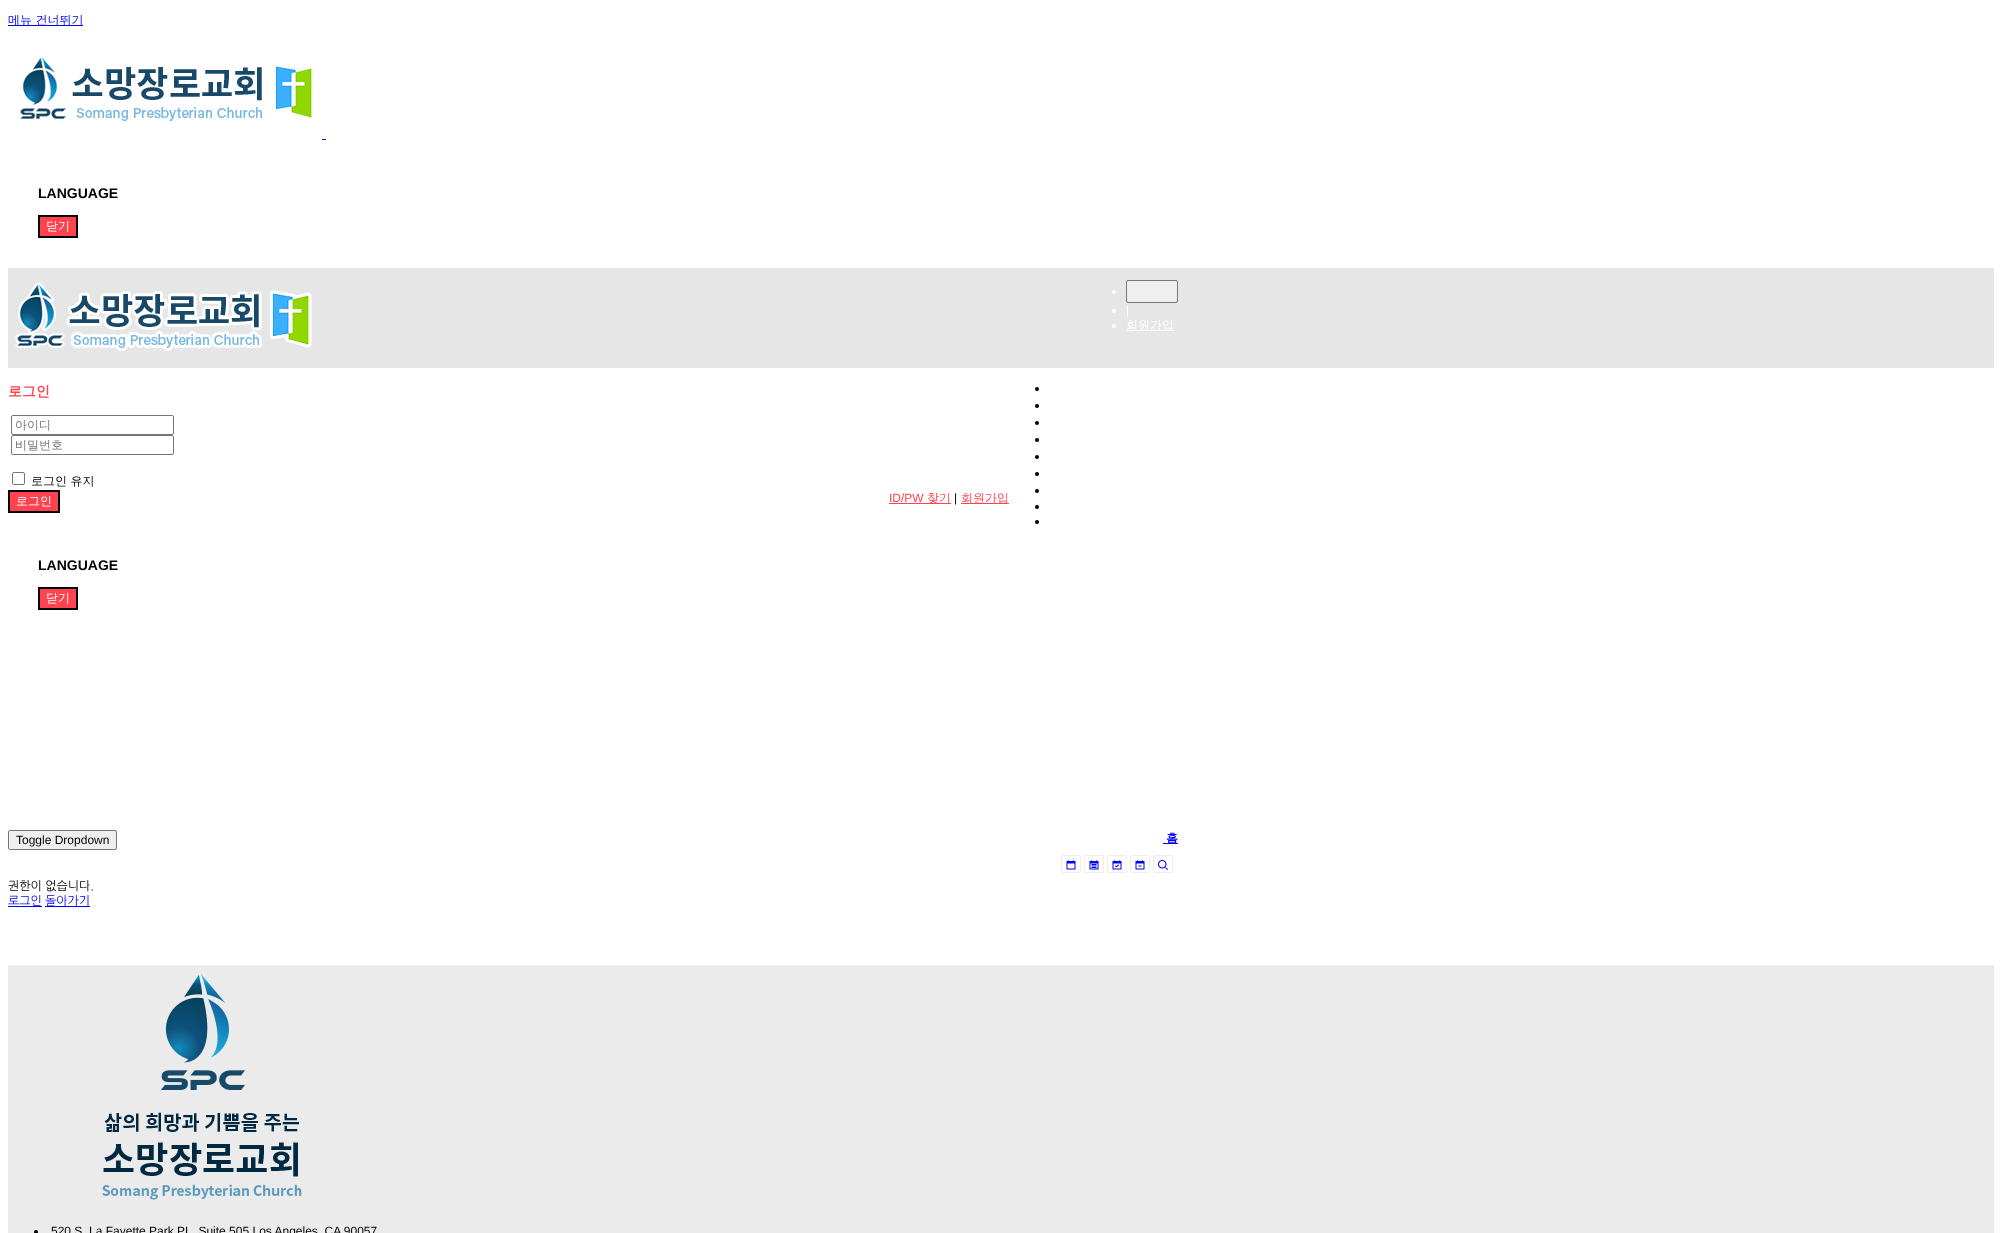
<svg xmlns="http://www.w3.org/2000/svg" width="2002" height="1233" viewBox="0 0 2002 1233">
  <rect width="100%" height="100%" fill="rgb(255,255,255)"/>
  <rect x="8" y="25" width="75" height="1" fill="rgb(0,0,238)"/>
  <text x="8" y="24" font-family="WenQuanYi Zen Hei" font-size="12" font-weight="500" fill="rgb(0,0,238)">메뉴 건너뛰기</text>
  <image x="20" y="57" width="292" height="64" href="pic1.png"/>
  <rect x="322" y="139" width="4" height="1" fill="rgb(0,0,238)"/>
  <text x="38" y="198" font-family="Liberation Sans" font-size="14" font-weight="bold" fill="rgb(0,0,0)">LANGUAGE</text>
  <rect x="39" y="216" width="38" height="21" fill="rgb(255,68,79)" stroke="rgb(0,0,0)" stroke-width="2"/>
  <text x="46" y="230" font-family="WenQuanYi Zen Hei" font-size="12" font-weight="500" fill="rgb(255,255,255)">닫기</text>
  <rect x="8" y="268" width="1986" height="100" fill="rgb(230,230,230)"/>
  <image x="15" y="282" width="297" height="69" href="pic2.png"/>
  <circle cx="1037" cy="389" r="2" fill="rgb(0,0,0)"/>
  <circle cx="1037" cy="406" r="2" fill="rgb(0,0,0)"/>
  <circle cx="1037" cy="423" r="2" fill="rgb(0,0,0)"/>
  <circle cx="1037" cy="440" r="2" fill="rgb(0,0,0)"/>
  <circle cx="1037" cy="457" r="2" fill="rgb(0,0,0)"/>
  <circle cx="1037" cy="474" r="2" fill="rgb(0,0,0)"/>
  <circle cx="1037" cy="491" r="2" fill="rgb(0,0,0)"/>
  <circle cx="1037" cy="507" r="2" fill="rgb(0,0,0)"/>
  <circle cx="1037" cy="522" r="2" fill="rgb(0,0,0)"/>
  <circle cx="1114" cy="292" r="2" fill="rgb(255,255,255)"/>
  <rect x="1126.5" y="280.5" width="51" height="22" rx="1.5" fill="rgb(239,239,239)" stroke="rgb(118,118,118)"/>
  <circle cx="1114" cy="311" r="2" fill="rgb(255,255,255)"/>
  <text x="1126" y="314" font-family="Liberation Sans" font-size="12" fill="rgb(255,255,255)">|</text>
  <circle cx="1114" cy="326" r="2" fill="rgb(255,255,255)"/>
  <rect x="1126" y="330" width="48" height="1" fill="rgb(255,255,255)"/>
  <text x="1126" y="329" font-family="WenQuanYi Zen Hei" font-size="12" font-weight="500" fill="rgb(255,255,255)">회원가입</text>
  <text x="8" y="396" font-family="WenQuanYi Zen Hei" font-size="14" font-weight="bold" fill="rgb(255,68,79)">로그인</text>
  <rect x="11.5" y="415.5" width="162" height="19" rx="1.5" fill="none" stroke="rgb(118,118,118)"/>
  <text x="15" y="429" font-family="WenQuanYi Zen Hei" font-size="12" font-weight="500" fill="rgb(117,117,117)">아이디</text>
  <rect x="11.5" y="435.5" width="162" height="19" rx="1.5" fill="none" stroke="rgb(118,118,118)"/>
  <text x="15" y="449" font-family="WenQuanYi Zen Hei" font-size="12" font-weight="500" fill="rgb(117,117,117)">비밀번호</text>
  <rect x="12.5" y="472.5" width="12" height="12" rx="1.5" fill="none" stroke="rgb(118,118,118)"/>
  <text x="31" y="485" font-family="WenQuanYi Zen Hei" font-size="12" font-weight="500" fill="rgb(0,0,0)">로그인 유지</text>
  <text x="889" y="502" font-family="Liberation Sans" font-size="12" fill="rgb(255,68,79)">ID/PW</text>
  <rect x="889" y="503" width="62" height="1" fill="rgb(255,68,79)"/>
  <text x="927" y="502" font-family="WenQuanYi Zen Hei" font-size="12" font-weight="500" fill="rgb(255,68,79)">찾기</text>
  <text x="954" y="502" font-family="Liberation Sans" font-size="12" fill="rgb(0,0,0)">|</text>
  <rect x="961" y="503" width="48" height="1" fill="rgb(255,68,79)"/>
  <text x="961" y="502" font-family="WenQuanYi Zen Hei" font-size="12" font-weight="500" fill="rgb(255,68,79)">회원가입</text>
  <rect x="9" y="491" width="50" height="21" fill="rgb(255,68,79)" stroke="rgb(0,0,0)" stroke-width="2"/>
  <text x="16" y="505" font-family="WenQuanYi Zen Hei" font-size="12" font-weight="500" fill="rgb(255,255,255)">로그인</text>
  <text x="38" y="570" font-family="Liberation Sans" font-size="14" font-weight="bold" fill="rgb(0,0,0)">LANGUAGE</text>
  <rect x="39" y="588" width="38" height="21" fill="rgb(255,68,79)" stroke="rgb(0,0,0)" stroke-width="2"/>
  <text x="46" y="602" font-family="WenQuanYi Zen Hei" font-size="12" font-weight="500" fill="rgb(255,255,255)">닫기</text>
  <rect x="8.5" y="830.5" width="108" height="19" rx="1.5" fill="rgb(239,239,239)" stroke="rgb(118,118,118)"/>
  <text x="16" y="844" font-family="Liberation Sans" font-size="12" fill="rgb(0,0,0)">Toggle Dropdown</text>
  <rect x="1163" y="843" width="15" height="1" fill="rgb(0,0,238)"/>
  <text x="1166" y="842" font-family="WenQuanYi Zen Hei" font-size="12" font-weight="bold" fill="rgb(0,0,238)">홈</text>
  <rect x="1061.5" y="855.5" width="19" height="17" rx="0.5" fill="none" stroke="rgb(238,238,238)"/>
  <image x="1066" y="860" width="10" height="10" href="pic3.png"/>
  <rect x="1084.5" y="855.5" width="19" height="17" rx="0.5" fill="none" stroke="rgb(238,238,238)"/>
  <image x="1089" y="860" width="10" height="10" href="pic4.png"/>
  <rect x="1107.5" y="855.5" width="19" height="17" rx="0.5" fill="none" stroke="rgb(238,238,238)"/>
  <image x="1112" y="860" width="10" height="10" href="pic5.png"/>
  <rect x="1130.5" y="855.5" width="19" height="17" rx="0.5" fill="none" stroke="rgb(238,238,238)"/>
  <image x="1135" y="860" width="10" height="10" href="pic6.png"/>
  <rect x="1153.5" y="855.5" width="19" height="17" rx="0.5" fill="none" stroke="rgb(238,238,238)"/>
  <image x="1158" y="860" width="10" height="10" href="pic7.png"/>
  <text x="8" y="890" font-family="NanumGothic" font-size="12" fill="rgb(0,0,0)">권한이 없습니다.</text>
  <text x="8" y="905" font-family="NanumGothic" font-size="12" fill="rgb(0,0,238)">로그인</text>
  <rect x="8" y="906" width="34" height="1" fill="rgb(0,0,238)"/>
  <rect x="45" y="906" width="45" height="1" fill="rgb(0,0,238)"/>
  <text x="45" y="905" font-family="NanumGothic" font-size="12" fill="rgb(0,0,238)">돌아가기</text>
  <rect x="8" y="965" width="1986" height="268" fill="rgb(235,235,235)"/>
  <image x="102" y="974" width="200" height="226" href="pic8.png"/>
  <circle cx="36" cy="1232" r="2" fill="rgb(0,0,0)"/>
  <text x="51" y="1235" font-family="Liberation Sans" font-size="12" fill="rgb(0,0,0)">520 S. La Fayette Park PL. Suite 505 Los Angeles, CA 90057</text>
</svg>
